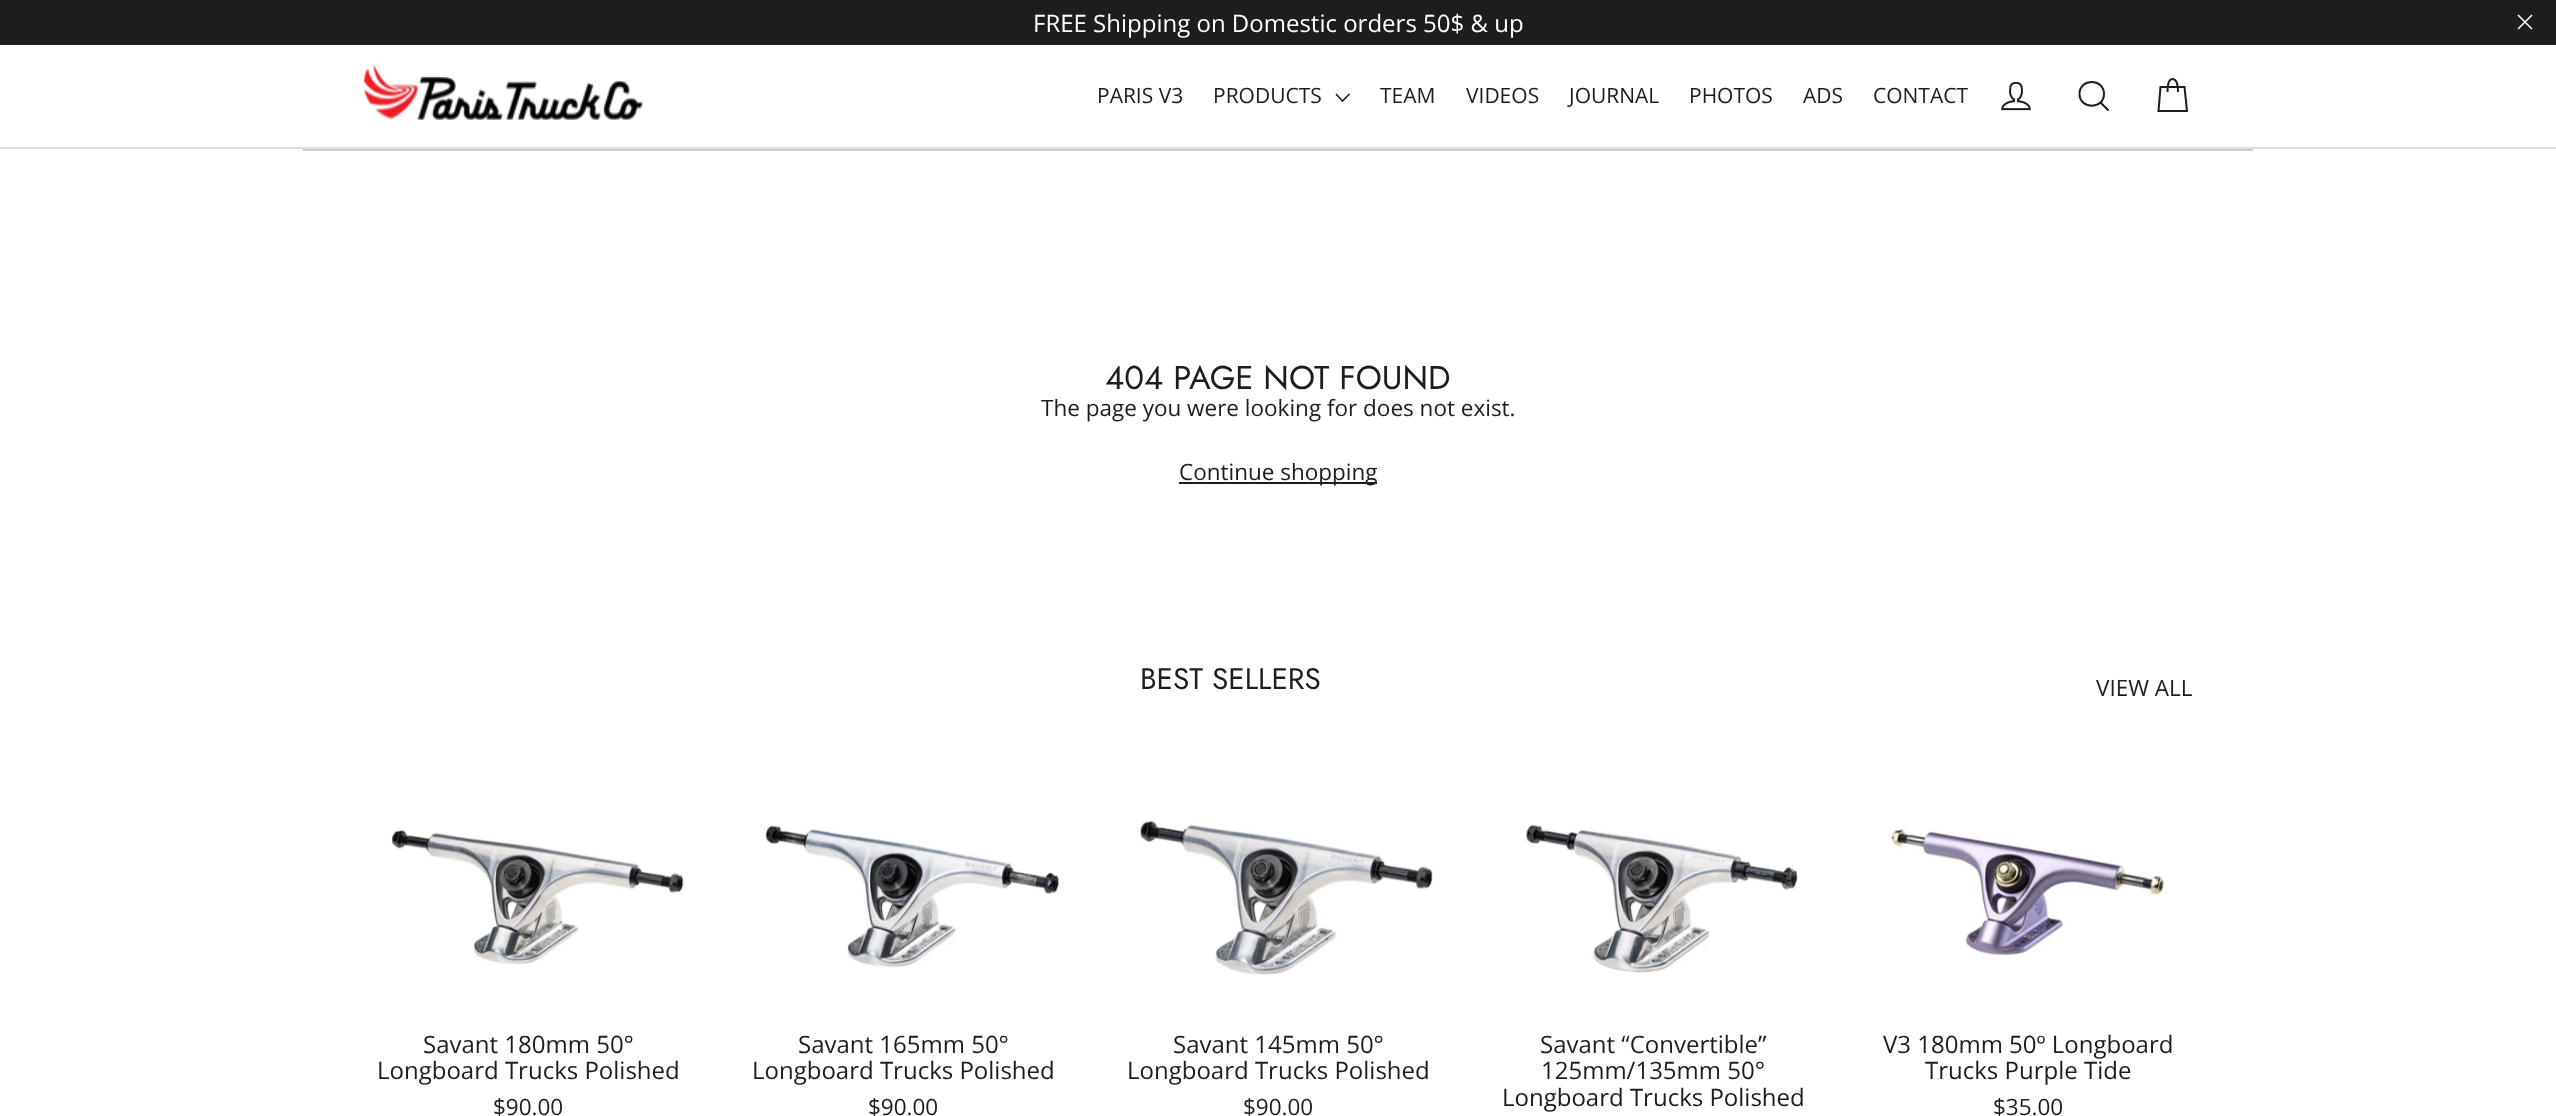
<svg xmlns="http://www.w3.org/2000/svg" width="2556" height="1116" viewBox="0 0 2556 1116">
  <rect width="100%" height="100%" fill="rgb(255,255,255)"/>
  <rect x="0" y="0" width="2556" height="45" fill="rgb(28,29,29)"/>
  <text x="1033" y="32" font-family="Open Sans" font-size="24" fill="rgb(255,255,255)">FREE Shipping on Domestic orders 50$ &amp; up</text>
  <path d="M2518 15L2532 29M2532 15L2518 29" fill="none" stroke="rgb(255,255,255)" stroke-width="1.5"/>
  <rect x="0" y="147" width="2556" height="2" fill="rgb(221,221,221)"/>
  <image x="363" y="64" width="280" height="56" href="pic1.png"/>
  <g font-family="Open Sans" font-size="21" fill="rgb(28,29,29)">
    <text x="1097" y="103">PARIS V3</text>
    <text x="1213" y="103">PRODUCTS</text>
  </g>
  <path d="M1336 94L1342.5 101L1349.5 94" fill="none" stroke="rgb(28,29,29)" stroke-width="1.6"/>
  <g font-family="Open Sans" font-size="21" fill="rgb(28,29,29)">
    <text x="1380" y="103">TEAM</text>
    <text x="1466" y="103">VIDEOS</text>
    <text x="1569" y="103">JOURNAL</text>
    <text x="1689" y="103">PHOTOS</text>
    <text x="1803" y="103">ADS</text>
    <text x="1873" y="103">CONTACT</text>
  </g>
  <image x="2001" y="81" width="30" height="30" href="pic2.png"/>
  <path d="M2104 94C2104 109.5 2079.5 109.5 2079.5 94C2079.5 78 2104 78 2104 94ZM2108.5 110.5L2100.5 102.5" fill="none" stroke="rgb(28,29,29)" stroke-width="2"/>
  <path d="M2167.5 92C2167.5 81.5 2169.5 79 2172.5 79C2175.5 79 2178 81.5 2178 92M2160.5 87H2184.5L2187 111H2158.5Z" fill="none" stroke="rgb(28,29,29)" stroke-width="2"/>
  <rect x="303" y="149" width="1950" height="2" fill="rgb(204,204,204)"/>
  <text x="1105" y="389" font-family="Jost" font-size="33" fill="rgb(28,29,29)">404 PAGE NOT FOUND</text>
  <text x="1041" y="416" font-family="Open Sans" font-size="22.5" fill="rgb(28,29,29)">The page you were looking for does not exist.</text>
  <rect x="1179" y="482" width="198" height="2" fill="rgb(28,29,29)"/>
  <text x="1179" y="480" font-family="Open Sans" font-size="22.5" fill="rgb(28,29,29)">Continue shopping</text>
  <text x="1140" y="689" font-family="Jost" font-size="29.75" fill="rgb(28,29,29)">BEST SELLERS</text>
  <text x="2096" y="696" font-family="Open Sans" font-size="22.5" fill="rgb(28,29,29)">VIEW ALL</text>
  <image x="391" y="830" width="294" height="135" href="pic3.png"/>
  <g font-family="Open Sans" font-size="24" fill="rgb(28,29,29)">
    <text x="423" y="1053">Savant 180mm 50°</text>
    <text x="377" y="1079">Longboard Trucks Polished</text>
  </g>
  <text x="493" y="1115" font-family="Open Sans" font-size="22.5" fill="rgb(28,29,29)">$90.00</text>
  <image x="765" y="825" width="296" height="143" href="pic4.png"/>
  <g font-family="Open Sans" font-size="24" fill="rgb(28,29,29)">
    <text x="798" y="1053">Savant 165mm 50°</text>
    <text x="752" y="1079">Longboard Trucks Polished</text>
  </g>
  <text x="868" y="1115" font-family="Open Sans" font-size="22.5" fill="rgb(28,29,29)">$90.00</text>
  <image x="1139" y="820" width="294" height="155" href="pic5.png"/>
  <g font-family="Open Sans" font-size="24" fill="rgb(28,29,29)">
    <text x="1173" y="1053">Savant 145mm 50°</text>
    <text x="1127" y="1079">Longboard Trucks Polished</text>
  </g>
  <text x="1243" y="1115" font-family="Open Sans" font-size="22.5" fill="rgb(28,29,29)">$90.00</text>
  <image x="1526" y="824" width="272" height="150" href="pic6.png"/>
  <g font-family="Open Sans" font-size="24" fill="rgb(28,29,29)">
    <text x="1540" y="1053">Savant “Convertible”</text>
    <text x="1541" y="1079">125mm/135mm 50°</text>
    <text x="1502" y="1106">Longboard Trucks Polished</text>
  </g>
  <image x="1891" y="829" width="274" height="127" href="pic7.png"/>
  <g font-family="Open Sans" font-size="24" fill="rgb(28,29,29)">
    <text x="1883" y="1053">V3 180mm 50º Longboard</text>
    <text x="1925" y="1079">Trucks Purple Tide</text>
  </g>
  <text x="1993" y="1115" font-family="Open Sans" font-size="22.5" fill="rgb(28,29,29)">$35.00</text>
</svg>
